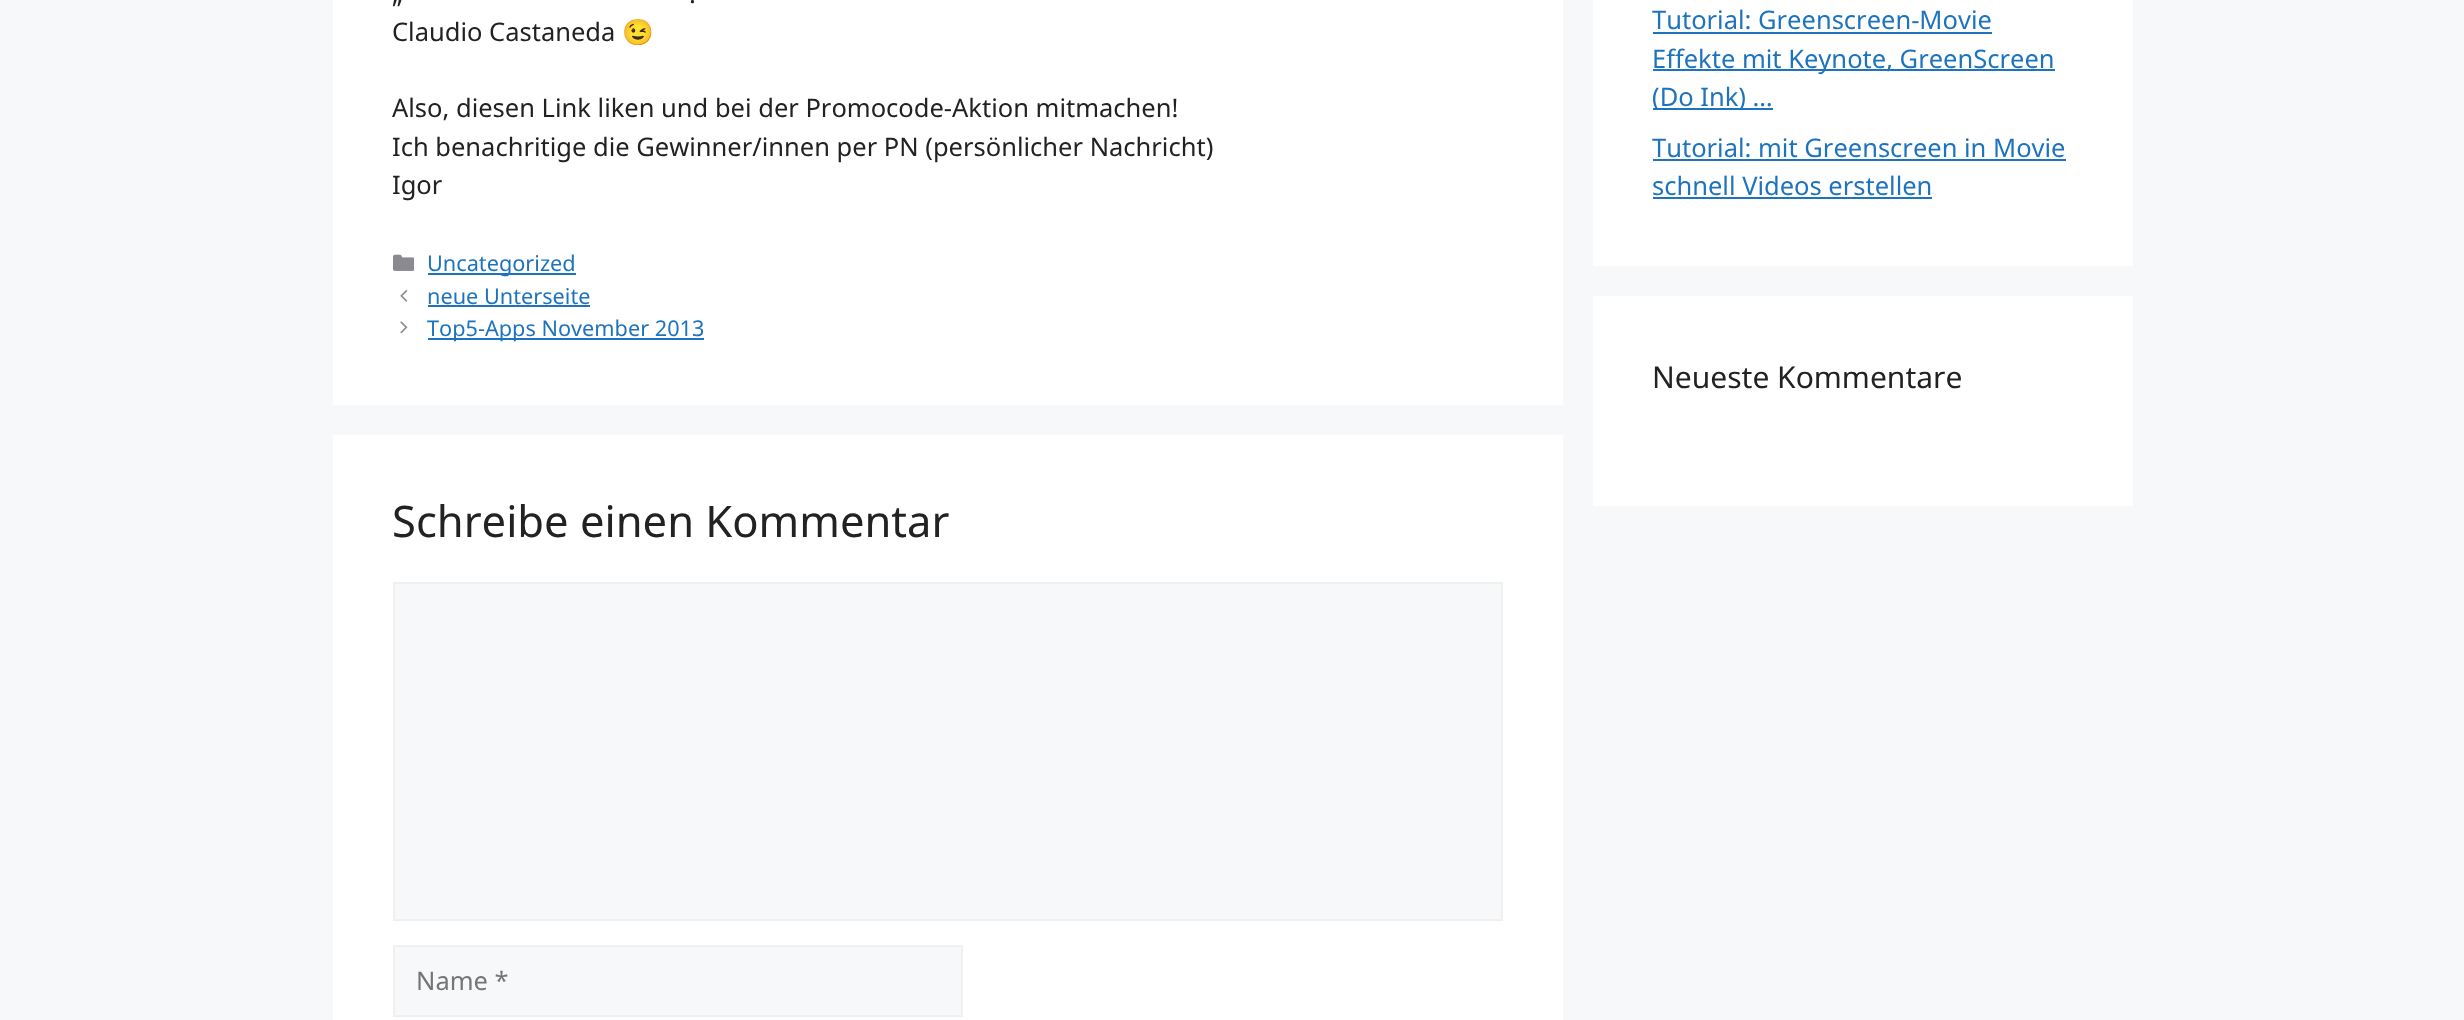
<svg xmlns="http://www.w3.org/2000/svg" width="2464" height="1020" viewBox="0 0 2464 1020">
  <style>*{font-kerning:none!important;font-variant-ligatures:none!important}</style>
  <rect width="100%" height="100%" fill="rgb(247,248,249)"/>
  <rect x="333" y="0" width="1230" height="405" fill="rgb(255,255,255)"/>
  <g font-family="Noto Sans" font-size="25.5" fill="rgb(34,34,34)">
    <text x="392" y="3">„</text>
    <text x="689" y="3">.</text>
    <text x="392" y="41">Claudio Castaneda</text>
  </g>
  <text x="622" y="41" font-family="Noto Color Emoji" font-size="25.5" fill="rgb(34,34,34)">😉</text>
  <g font-family="Noto Sans" font-size="25.5" fill="rgb(34,34,34)">
    <text>
      <tspan x="392" y="117">Also, diesen Link liken und bei der Promocode-Aktion mitmachen!</tspan>
      <tspan x="392" y="156">Ich benachritige die Gewinner/innen per PN (persönlicher Nachricht)</tspan>
      <tspan x="392" y="194">Igor</tspan>
    </text>
  </g>
  <image x="393" y="254" width="21" height="17" href="pic1.png"/>
  <rect x="428" y="273" width="148" height="2" fill="rgb(30,115,190)"/>
  <text x="427" y="271" font-family="Noto Sans" font-size="21.7" fill="rgb(30,115,190)">Uncategorized</text>
  <image x="400" y="289" width="8" height="13" href="pic2.png"/>
  <text x="427" y="304" font-family="Noto Sans" font-size="21.7" fill="rgb(30,115,190)">neue Unterseite</text>
  <rect x="428" y="305" width="162" height="2" fill="rgb(30,115,190)"/>
  <image x="400" y="321" width="8" height="13" href="pic3.png"/>
  <rect x="428" y="338" width="276" height="2" fill="rgb(30,115,190)"/>
  <text x="427" y="336" font-family="Noto Sans" font-size="21.7" fill="rgb(30,115,190)">Top5-Apps November 2013</text>
  <rect x="333" y="435" width="1230" height="585" fill="rgb(255,255,255)"/>
  <text x="392" y="537" font-family="Noto Sans" font-size="43.5" fill="rgb(34,34,34)">Schreibe einen Kommentar</text>
  <rect x="394" y="583" width="1108" height="337" fill="rgb(247,248,249)" stroke="rgb(240,240,240)" stroke-width="2"/>
  <rect x="394" y="946" width="568" height="70" fill="rgb(247,248,249)" stroke="rgb(240,240,240)" stroke-width="2"/>
  <text x="416" y="990" font-family="Noto Sans" font-size="25.5" fill="rgb(117,117,117)">Name *</text>
  <rect x="1593" y="0" width="540" height="266" fill="rgb(255,255,255)"/>
  <text x="1652" y="29" font-family="Noto Sans" font-size="25.5" fill="rgb(30,115,190)">Tutorial: Greenscreen-Movie</text>
  <rect x="1653" y="32" width="339" height="2" fill="rgb(30,115,190)"/>
  <rect x="1653" y="69" width="402" height="2" fill="rgb(30,115,190)"/>
  <text x="1652" y="68" font-family="Noto Sans" font-size="25.5" fill="rgb(30,115,190)">Effekte mit Keynote, GreenScreen</text>
  <rect x="1653" y="108" width="120" height="2" fill="rgb(30,115,190)"/>
  <g font-family="Noto Sans" font-size="25.5" fill="rgb(30,115,190)">
    <text x="1652" y="106">(Do Ink) …</text>
    <text x="1652" y="157">Tutorial: mit Greenscreen in Movie</text>
  </g>
  <rect x="1653" y="159" width="413" height="2" fill="rgb(30,115,190)"/>
  <text x="1652" y="195" font-family="Noto Sans" font-size="25.5" fill="rgb(30,115,190)">schnell Videos erstellen</text>
  <rect x="1653" y="197" width="279" height="2" fill="rgb(30,115,190)"/>
  <rect x="1593" y="296" width="540" height="210" fill="rgb(255,255,255)"/>
  <text x="1652" y="388" font-family="Noto Sans" font-size="30" fill="rgb(34,34,34)">Neueste Kommentare</text>
</svg>
